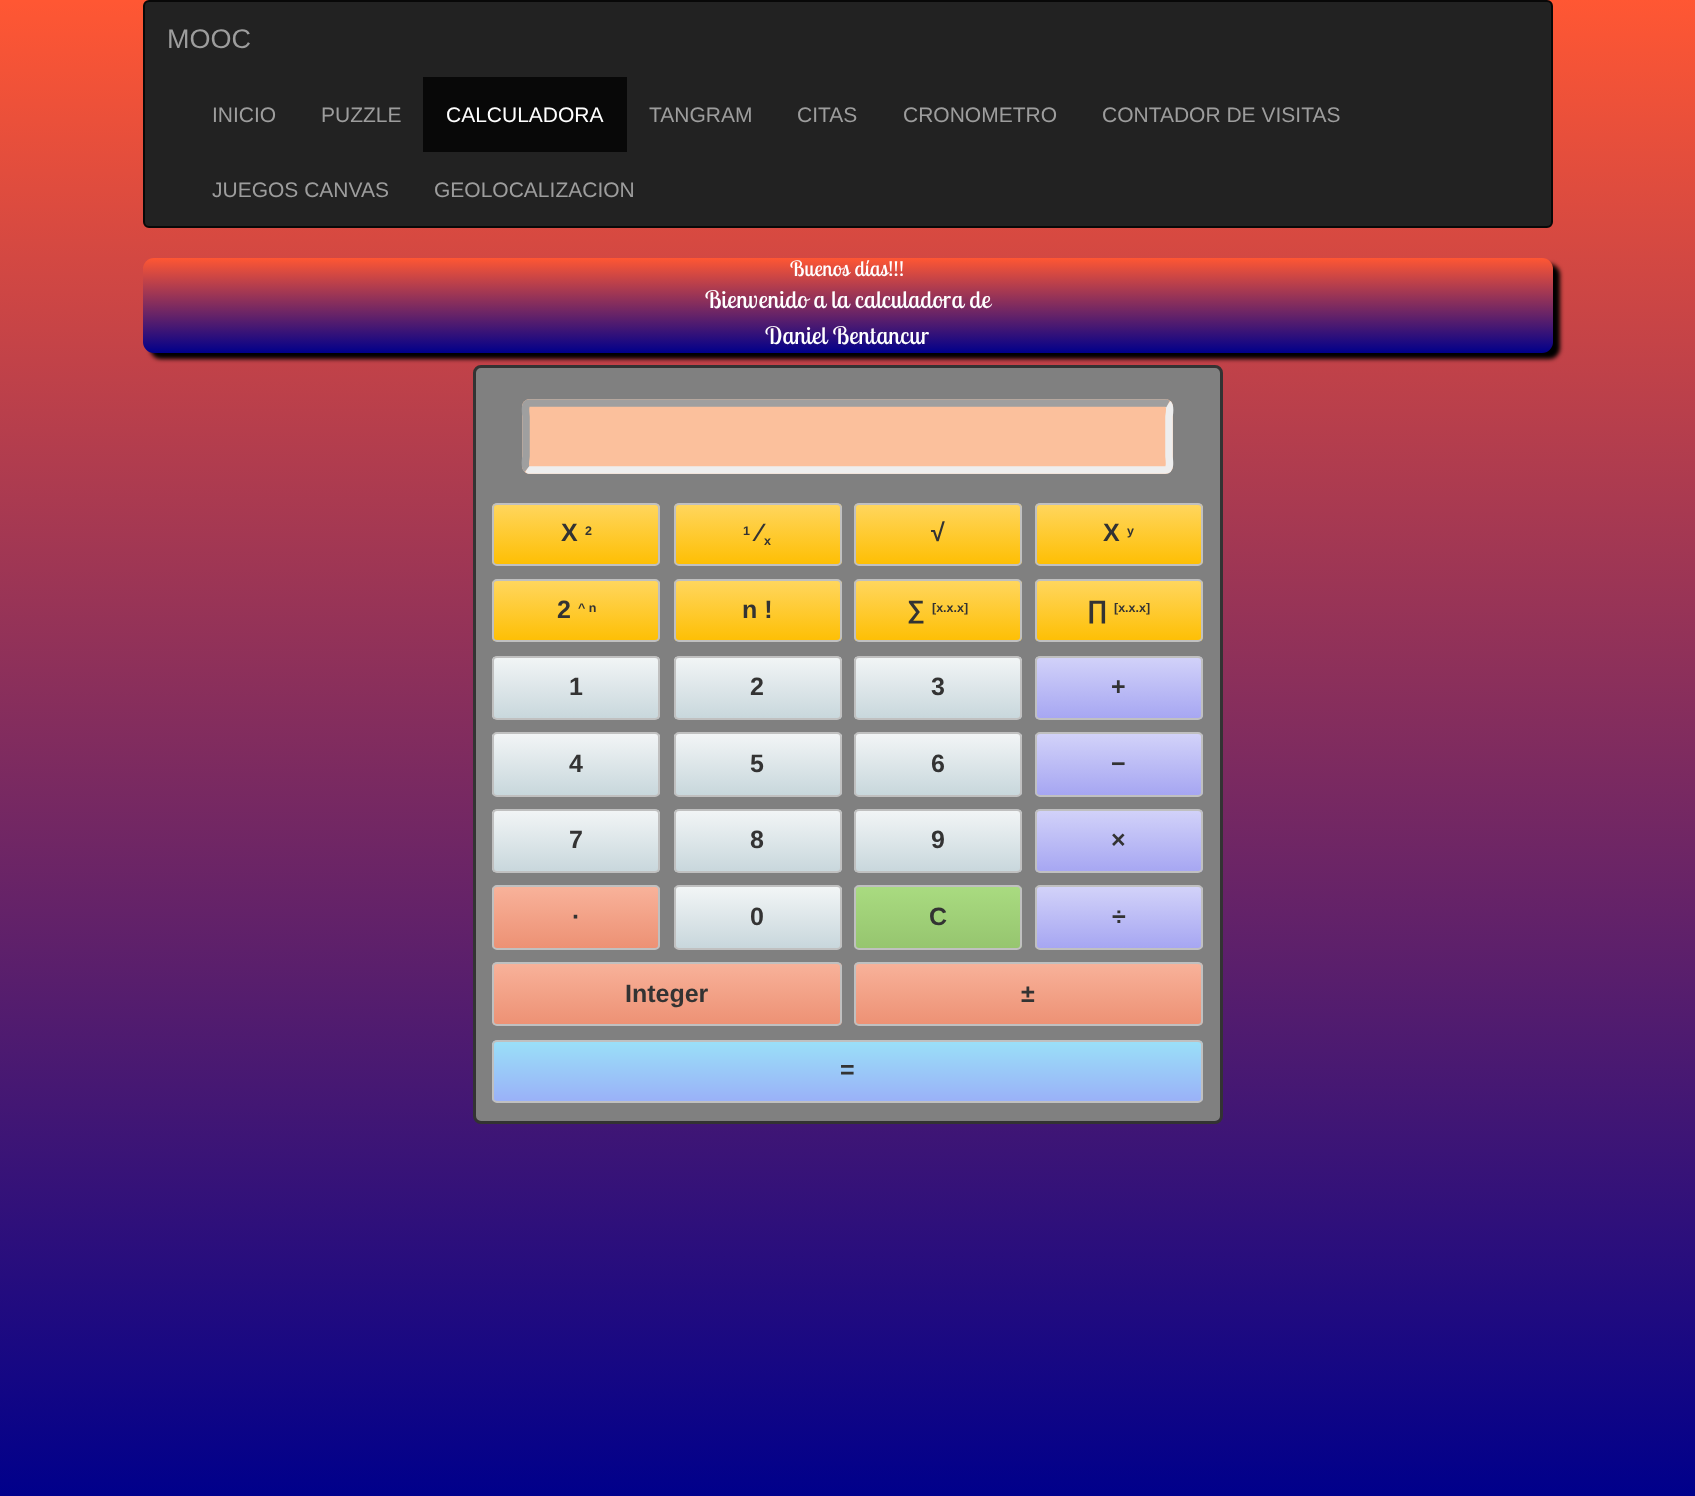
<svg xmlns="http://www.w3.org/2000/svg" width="1695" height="1496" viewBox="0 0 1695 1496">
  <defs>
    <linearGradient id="g1" gradientUnits="userSpaceOnUse" x1="847" y1="0" x2="848" y2="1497"><stop offset="0" stop-color="rgb(255,87,51)"/><stop offset="1" stop-color="rgb(0,0,139)"/></linearGradient>
    <linearGradient id="g2" gradientUnits="userSpaceOnUse" x1="848" y1="258" x2="848" y2="353"><stop offset="0" stop-color="rgb(255,87,51)"/><stop offset="1" stop-color="rgb(0,0,139)"/></linearGradient>
    <clipPath id="clip1"><rect x="492" y="503" width="168" height="63" rx="5"/></clipPath>
    <linearGradient id="g3" gradientUnits="userSpaceOnUse" x1="576" y1="504" x2="576" y2="564"><stop offset="0" stop-color="rgb(255,214,94)"/><stop offset="1" stop-color="rgb(254,191,4)"/></linearGradient>
    <clipPath id="clip2"><rect x="674" y="503" width="168" height="63" rx="5"/></clipPath>
    <linearGradient id="g4" gradientUnits="userSpaceOnUse" x1="758" y1="504" x2="758" y2="564"><stop offset="0" stop-color="rgb(255,214,94)"/><stop offset="1" stop-color="rgb(254,191,4)"/></linearGradient>
    <clipPath id="clip3"><rect x="854" y="503" width="168" height="63" rx="5"/></clipPath>
    <linearGradient id="g5" gradientUnits="userSpaceOnUse" x1="938" y1="504" x2="938" y2="564"><stop offset="0" stop-color="rgb(255,214,94)"/><stop offset="1" stop-color="rgb(254,191,4)"/></linearGradient>
    <clipPath id="clip4"><rect x="1035" y="503" width="168" height="63" rx="5"/></clipPath>
    <linearGradient id="g6" gradientUnits="userSpaceOnUse" x1="1119" y1="504" x2="1119" y2="564"><stop offset="0" stop-color="rgb(255,214,94)"/><stop offset="1" stop-color="rgb(254,191,4)"/></linearGradient>
    <clipPath id="clip5"><rect x="492" y="579" width="168" height="63" rx="5"/></clipPath>
    <linearGradient id="g7" gradientUnits="userSpaceOnUse" x1="576" y1="581" x2="576" y2="641"><stop offset="0" stop-color="rgb(255,214,94)"/><stop offset="1" stop-color="rgb(254,191,4)"/></linearGradient>
    <clipPath id="clip6"><rect x="674" y="579" width="168" height="63" rx="5"/></clipPath>
    <linearGradient id="g8" gradientUnits="userSpaceOnUse" x1="758" y1="581" x2="758" y2="641"><stop offset="0" stop-color="rgb(255,214,94)"/><stop offset="1" stop-color="rgb(254,191,4)"/></linearGradient>
    <clipPath id="clip7"><rect x="854" y="579" width="168" height="63" rx="5"/></clipPath>
    <linearGradient id="g9" gradientUnits="userSpaceOnUse" x1="938" y1="581" x2="938" y2="641"><stop offset="0" stop-color="rgb(255,214,94)"/><stop offset="1" stop-color="rgb(254,191,4)"/></linearGradient>
    <clipPath id="clip8"><rect x="1035" y="579" width="168" height="63" rx="5"/></clipPath>
    <linearGradient id="g10" gradientUnits="userSpaceOnUse" x1="1119" y1="581" x2="1119" y2="641"><stop offset="0" stop-color="rgb(255,214,94)"/><stop offset="1" stop-color="rgb(254,191,4)"/></linearGradient>
    <clipPath id="clip9"><rect x="492" y="656" width="168" height="64" rx="5"/></clipPath>
    <linearGradient id="g11" gradientUnits="userSpaceOnUse" x1="576" y1="657" x2="576" y2="719"><stop offset="0" stop-color="rgb(242,245,246)"/><stop offset="1" stop-color="rgb(200,215,220)"/></linearGradient>
    <clipPath id="clip10"><rect x="674" y="656" width="168" height="64" rx="5"/></clipPath>
    <linearGradient id="g12" gradientUnits="userSpaceOnUse" x1="758" y1="657" x2="758" y2="719"><stop offset="0" stop-color="rgb(242,245,246)"/><stop offset="1" stop-color="rgb(200,215,220)"/></linearGradient>
    <clipPath id="clip11"><rect x="854" y="656" width="168" height="64" rx="5"/></clipPath>
    <linearGradient id="g13" gradientUnits="userSpaceOnUse" x1="938" y1="657" x2="938" y2="719"><stop offset="0" stop-color="rgb(242,245,246)"/><stop offset="1" stop-color="rgb(200,215,220)"/></linearGradient>
    <clipPath id="clip12"><rect x="1035" y="656" width="168" height="64" rx="5"/></clipPath>
    <linearGradient id="g14" gradientUnits="userSpaceOnUse" x1="1119" y1="657" x2="1119" y2="719"><stop offset="0" stop-color="rgb(210,210,249)"/><stop offset="1" stop-color="rgb(166,166,242)"/></linearGradient>
    <clipPath id="clip13"><rect x="492" y="732" width="168" height="65" rx="5"/></clipPath>
    <linearGradient id="g15" gradientUnits="userSpaceOnUse" x1="576" y1="734" x2="576" y2="795"><stop offset="0" stop-color="rgb(242,245,246)"/><stop offset="1" stop-color="rgb(200,215,220)"/></linearGradient>
    <clipPath id="clip14"><rect x="674" y="732" width="168" height="65" rx="5"/></clipPath>
    <linearGradient id="g16" gradientUnits="userSpaceOnUse" x1="758" y1="734" x2="758" y2="795"><stop offset="0" stop-color="rgb(242,245,246)"/><stop offset="1" stop-color="rgb(200,215,220)"/></linearGradient>
    <clipPath id="clip15"><rect x="854" y="732" width="168" height="65" rx="5"/></clipPath>
    <linearGradient id="g17" gradientUnits="userSpaceOnUse" x1="938" y1="734" x2="938" y2="795"><stop offset="0" stop-color="rgb(242,245,246)"/><stop offset="1" stop-color="rgb(200,215,220)"/></linearGradient>
    <clipPath id="clip16"><rect x="1035" y="732" width="168" height="65" rx="5"/></clipPath>
    <linearGradient id="g18" gradientUnits="userSpaceOnUse" x1="1119" y1="734" x2="1119" y2="795"><stop offset="0" stop-color="rgb(210,210,249)"/><stop offset="1" stop-color="rgb(166,166,242)"/></linearGradient>
    <clipPath id="clip17"><rect x="492" y="809" width="168" height="64" rx="5"/></clipPath>
    <linearGradient id="g19" gradientUnits="userSpaceOnUse" x1="576" y1="810" x2="576" y2="872"><stop offset="0" stop-color="rgb(242,245,246)"/><stop offset="1" stop-color="rgb(200,215,220)"/></linearGradient>
    <clipPath id="clip18"><rect x="674" y="809" width="168" height="64" rx="5"/></clipPath>
    <linearGradient id="g20" gradientUnits="userSpaceOnUse" x1="758" y1="810" x2="758" y2="872"><stop offset="0" stop-color="rgb(242,245,246)"/><stop offset="1" stop-color="rgb(200,215,220)"/></linearGradient>
    <clipPath id="clip19"><rect x="854" y="809" width="168" height="64" rx="5"/></clipPath>
    <linearGradient id="g21" gradientUnits="userSpaceOnUse" x1="938" y1="810" x2="938" y2="872"><stop offset="0" stop-color="rgb(242,245,246)"/><stop offset="1" stop-color="rgb(200,215,220)"/></linearGradient>
    <clipPath id="clip20"><rect x="1035" y="809" width="168" height="64" rx="5"/></clipPath>
    <linearGradient id="g22" gradientUnits="userSpaceOnUse" x1="1119" y1="810" x2="1119" y2="872"><stop offset="0" stop-color="rgb(210,210,249)"/><stop offset="1" stop-color="rgb(166,166,242)"/></linearGradient>
    <clipPath id="clip21"><rect x="492" y="885" width="168" height="65" rx="5"/></clipPath>
    <linearGradient id="g23" gradientUnits="userSpaceOnUse" x1="576" y1="887" x2="576" y2="948"><stop offset="0" stop-color="rgb(248,178,154)"/><stop offset="1" stop-color="rgb(237,145,116)"/></linearGradient>
    <clipPath id="clip22"><rect x="674" y="885" width="168" height="65" rx="5"/></clipPath>
    <linearGradient id="g24" gradientUnits="userSpaceOnUse" x1="758" y1="887" x2="758" y2="948"><stop offset="0" stop-color="rgb(242,245,246)"/><stop offset="1" stop-color="rgb(200,215,220)"/></linearGradient>
    <clipPath id="clip23"><rect x="854" y="885" width="168" height="65" rx="5"/></clipPath>
    <linearGradient id="g25" gradientUnits="userSpaceOnUse" x1="938" y1="887" x2="938" y2="948"><stop offset="0" stop-color="rgb(169,219,128)"/><stop offset="1" stop-color="rgb(150,197,111)"/></linearGradient>
    <clipPath id="clip24"><rect x="1035" y="885" width="168" height="65" rx="5"/></clipPath>
    <linearGradient id="g26" gradientUnits="userSpaceOnUse" x1="1119" y1="887" x2="1119" y2="948"><stop offset="0" stop-color="rgb(210,210,249)"/><stop offset="1" stop-color="rgb(166,166,242)"/></linearGradient>
    <clipPath id="clip25"><rect x="492" y="962" width="350" height="64" rx="5"/></clipPath>
    <linearGradient id="g27" gradientUnits="userSpaceOnUse" x1="667" y1="963" x2="667" y2="1025"><stop offset="0" stop-color="rgb(248,178,154)"/><stop offset="1" stop-color="rgb(237,145,116)"/></linearGradient>
    <clipPath id="clip26"><rect x="854" y="962" width="349" height="64" rx="5"/></clipPath>
    <linearGradient id="g28" gradientUnits="userSpaceOnUse" x1="1028" y1="963" x2="1028" y2="1025"><stop offset="0" stop-color="rgb(248,178,154)"/><stop offset="1" stop-color="rgb(237,145,116)"/></linearGradient>
    <clipPath id="clip27"><rect x="492" y="1040" width="711" height="63" rx="5"/></clipPath>
    <linearGradient id="g29" gradientUnits="userSpaceOnUse" x1="848" y1="1041" x2="848" y2="1101"><stop offset="0" stop-color="rgb(154,224,248)"/><stop offset="1" stop-color="rgb(154,177,248)"/></linearGradient>
  </defs>
  <rect width="100%" height="100%" fill="rgb(255,255,255)"/>
  <rect x="0" y="0" width="1695" height="1496" fill="url(#g1)"/>
  <rect x="144" y="1" width="1408" height="226" rx="5" fill="rgb(34,34,34)" stroke="rgb(8,8,8)" stroke-width="2"/>
  <text x="167" y="48" font-family="Liberation Sans" font-size="27" fill="rgb(157,157,157)">MOOC</text>
  <g font-family="Liberation Sans" font-size="21" fill="rgb(157,157,157)">
    <text x="212" y="122">INICIO</text>
    <text x="321" y="122">PUZZLE</text>
  </g>
  <rect x="423" y="77" width="204" height="75" fill="rgb(8,8,8)"/>
  <text x="446" y="122" font-family="Liberation Sans" font-size="21" fill="rgb(255,255,255)">CALCULADORA</text>
  <g font-family="Liberation Sans" font-size="21" fill="rgb(157,157,157)">
    <text x="649" y="122">TANGRAM</text>
    <text x="797" y="122">CITAS</text>
    <text x="903" y="122">CRONOMETRO</text>
    <text x="1102" y="122">CONTADOR DE VISITAS</text>
    <text x="212" y="197">JUEGOS CANVAS</text>
    <text x="434" y="197">GEOLOCALIZACION</text>
  </g>
  <rect x="150" y="264" width="1410" height="95" rx="11" fill="rgb(0,0,0)" filter="blur(2px)"/>
  <rect x="143" y="258" width="1410" height="95" rx="11" fill="url(#g2)"/>
  <text x="790" y="276" font-family="Lobster Two" font-size="21" letter-spacing="0.4" fill="rgb(255,255,255)">Buenos días!!!</text>
  <g font-family="Lobster Two" font-size="24" letter-spacing="0.5" fill="rgb(255,255,255)">
    <text x="705" y="308">Bienvenido a la calculadora de</text>
    <text x="765" y="344">Daniel Bentancur</text>
  </g>
  <rect x="474.5" y="366.5" width="747" height="756" rx="6.5" fill="rgb(128,128,128)" stroke="rgb(51,51,51)" stroke-width="3"/>
  <rect x="522" y="399" width="651" height="75" rx="8" fill="rgb(251,192,156)"/>
  <path d="M1168 404C1171 406.5 1169 416 1169 416.5V456.5C1169 458.5 1171.5 470 1165.5 470H529L527 469" fill="none" stroke="rgb(238,238,238)" stroke-width="7.5"/>
  <path d="M527 469C524 466.5 526 457 526 456.5V416.5C526 414.5 523.5 403 529.5 403H1166L1168 404" fill="none" stroke="rgb(159,159,159)" stroke-width="7.5"/>
  <g clip-path="url(#clip1)">
    <rect x="492" y="504" width="168" height="60" fill="url(#g3)"/>
  </g>
  <rect x="493" y="504" width="166" height="61" rx="4" fill="none" stroke="rgb(192,192,192)" stroke-width="2"/>
  <text x="561" y="541" font-family="Liberation Sans" font-size="25" font-weight="bold" fill="rgb(51,51,51)">X</text>
  <text x="585" y="535" font-family="Liberation Sans" font-size="12.5" font-weight="bold" fill="rgb(51,51,51)">2</text>
  <g clip-path="url(#clip2)">
    <rect x="674" y="504" width="168" height="60" fill="url(#g4)"/>
  </g>
  <rect x="675" y="504" width="166" height="61" rx="4" fill="none" stroke="rgb(192,192,192)" stroke-width="2"/>
  <text x="743" y="535" font-family="Liberation Sans" font-size="12.5" font-weight="bold" fill="rgb(51,51,51)">1</text>
  <text x="757" y="541" font-family="Liberation Sans" font-size="25" font-weight="bold" fill="rgb(51,51,51)">∕</text>
  <text x="764" y="545" font-family="Liberation Sans" font-size="12.5" font-weight="bold" fill="rgb(51,51,51)">x</text>
  <g clip-path="url(#clip3)">
    <rect x="854" y="504" width="168" height="60" fill="url(#g5)"/>
  </g>
  <rect x="855" y="504" width="166" height="61" rx="4" fill="none" stroke="rgb(192,192,192)" stroke-width="2"/>
  <text x="931" y="541" font-family="Liberation Sans" font-size="25" font-weight="bold" fill="rgb(51,51,51)">√</text>
  <g clip-path="url(#clip4)">
    <rect x="1035" y="504" width="168" height="60" fill="url(#g6)"/>
  </g>
  <rect x="1036" y="504" width="166" height="61" rx="4" fill="none" stroke="rgb(192,192,192)" stroke-width="2"/>
  <text x="1103" y="541" font-family="Liberation Sans" font-size="25" font-weight="bold" fill="rgb(51,51,51)">X</text>
  <text x="1127" y="535" font-family="Liberation Sans" font-size="12.5" font-weight="bold" fill="rgb(51,51,51)">y</text>
  <g clip-path="url(#clip5)">
    <rect x="492" y="581" width="168" height="60" fill="url(#g7)"/>
  </g>
  <rect x="493" y="580" width="166" height="61" rx="4" fill="none" stroke="rgb(192,192,192)" stroke-width="2"/>
  <text x="557" y="618" font-family="Liberation Sans" font-size="25" font-weight="bold" fill="rgb(51,51,51)">2</text>
  <text x="578" y="612" font-family="Liberation Sans" font-size="12.5" font-weight="bold" fill="rgb(51,51,51)">^ n</text>
  <g clip-path="url(#clip6)">
    <rect x="674" y="581" width="168" height="60" fill="url(#g8)"/>
  </g>
  <rect x="675" y="580" width="166" height="61" rx="4" fill="none" stroke="rgb(192,192,192)" stroke-width="2"/>
  <text x="742" y="618" font-family="Liberation Sans" font-size="25" font-weight="bold" fill="rgb(51,51,51)">n !</text>
  <g clip-path="url(#clip7)">
    <rect x="854" y="581" width="168" height="60" fill="url(#g9)"/>
  </g>
  <rect x="855" y="580" width="166" height="61" rx="4" fill="none" stroke="rgb(192,192,192)" stroke-width="2"/>
  <text x="907" y="618" font-family="Liberation Sans" font-size="25" font-weight="bold" fill="rgb(51,51,51)">∑</text>
  <text x="932" y="612" font-family="Liberation Sans" font-size="12.5" font-weight="bold" fill="rgb(51,51,51)">[x.x.x]</text>
  <g clip-path="url(#clip8)">
    <rect x="1035" y="581" width="168" height="60" fill="url(#g10)"/>
  </g>
  <rect x="1036" y="580" width="166" height="61" rx="4" fill="none" stroke="rgb(192,192,192)" stroke-width="2"/>
  <text x="1087" y="618" font-family="Liberation Sans" font-size="25" font-weight="bold" fill="rgb(51,51,51)">∏</text>
  <text x="1114" y="612" font-family="Liberation Sans" font-size="12.5" font-weight="bold" fill="rgb(51,51,51)">[x.x.x]</text>
  <g clip-path="url(#clip9)">
    <rect x="492" y="657" width="168" height="62" fill="url(#g11)"/>
  </g>
  <rect x="493" y="657" width="166" height="62" rx="4" fill="none" stroke="rgb(192,192,192)" stroke-width="2"/>
  <text x="569" y="695" font-family="Liberation Sans" font-size="25" font-weight="bold" fill="rgb(51,51,51)">1</text>
  <g clip-path="url(#clip10)">
    <rect x="674" y="657" width="168" height="62" fill="url(#g12)"/>
  </g>
  <rect x="675" y="657" width="166" height="62" rx="4" fill="none" stroke="rgb(192,192,192)" stroke-width="2"/>
  <text x="750" y="695" font-family="Liberation Sans" font-size="25" font-weight="bold" fill="rgb(51,51,51)">2</text>
  <g clip-path="url(#clip11)">
    <rect x="854" y="657" width="168" height="62" fill="url(#g13)"/>
  </g>
  <rect x="855" y="657" width="166" height="62" rx="4" fill="none" stroke="rgb(192,192,192)" stroke-width="2"/>
  <text x="931" y="695" font-family="Liberation Sans" font-size="25" font-weight="bold" fill="rgb(51,51,51)">3</text>
  <g clip-path="url(#clip12)">
    <rect x="1035" y="657" width="168" height="62" fill="url(#g14)"/>
  </g>
  <rect x="1036" y="657" width="166" height="62" rx="4" fill="none" stroke="rgb(192,192,192)" stroke-width="2"/>
  <text x="1111" y="695" font-family="Liberation Sans" font-size="25" font-weight="bold" fill="rgb(51,51,51)">+</text>
  <g clip-path="url(#clip13)">
    <rect x="492" y="734" width="168" height="61" fill="url(#g15)"/>
  </g>
  <rect x="493" y="733" width="166" height="63" rx="4" fill="none" stroke="rgb(192,192,192)" stroke-width="2"/>
  <text x="569" y="772" font-family="Liberation Sans" font-size="25" font-weight="bold" fill="rgb(51,51,51)">4</text>
  <g clip-path="url(#clip14)">
    <rect x="674" y="734" width="168" height="61" fill="url(#g16)"/>
  </g>
  <rect x="675" y="733" width="166" height="63" rx="4" fill="none" stroke="rgb(192,192,192)" stroke-width="2"/>
  <text x="750" y="772" font-family="Liberation Sans" font-size="25" font-weight="bold" fill="rgb(51,51,51)">5</text>
  <g clip-path="url(#clip15)">
    <rect x="854" y="734" width="168" height="61" fill="url(#g17)"/>
  </g>
  <rect x="855" y="733" width="166" height="63" rx="4" fill="none" stroke="rgb(192,192,192)" stroke-width="2"/>
  <text x="931" y="772" font-family="Liberation Sans" font-size="25" font-weight="bold" fill="rgb(51,51,51)">6</text>
  <g clip-path="url(#clip16)">
    <rect x="1035" y="734" width="168" height="61" fill="url(#g18)"/>
  </g>
  <rect x="1036" y="733" width="166" height="63" rx="4" fill="none" stroke="rgb(192,192,192)" stroke-width="2"/>
  <text x="1111" y="772" font-family="Liberation Sans" font-size="25" font-weight="bold" fill="rgb(51,51,51)">−</text>
  <g clip-path="url(#clip17)">
    <rect x="492" y="810" width="168" height="62" fill="url(#g19)"/>
  </g>
  <rect x="493" y="810" width="166" height="62" rx="4" fill="none" stroke="rgb(192,192,192)" stroke-width="2"/>
  <text x="569" y="848" font-family="Liberation Sans" font-size="25" font-weight="bold" fill="rgb(51,51,51)">7</text>
  <g clip-path="url(#clip18)">
    <rect x="674" y="810" width="168" height="62" fill="url(#g20)"/>
  </g>
  <rect x="675" y="810" width="166" height="62" rx="4" fill="none" stroke="rgb(192,192,192)" stroke-width="2"/>
  <text x="750" y="848" font-family="Liberation Sans" font-size="25" font-weight="bold" fill="rgb(51,51,51)">8</text>
  <g clip-path="url(#clip19)">
    <rect x="854" y="810" width="168" height="62" fill="url(#g21)"/>
  </g>
  <rect x="855" y="810" width="166" height="62" rx="4" fill="none" stroke="rgb(192,192,192)" stroke-width="2"/>
  <text x="931" y="848" font-family="Liberation Sans" font-size="25" font-weight="bold" fill="rgb(51,51,51)">9</text>
  <g clip-path="url(#clip20)">
    <rect x="1035" y="810" width="168" height="62" fill="url(#g22)"/>
  </g>
  <rect x="1036" y="810" width="166" height="62" rx="4" fill="none" stroke="rgb(192,192,192)" stroke-width="2"/>
  <text x="1111" y="848" font-family="Liberation Sans" font-size="25" font-weight="bold" fill="rgb(51,51,51)">×</text>
  <g clip-path="url(#clip21)">
    <rect x="492" y="887" width="168" height="61" fill="url(#g23)"/>
  </g>
  <rect x="493" y="886" width="166" height="63" rx="4" fill="none" stroke="rgb(192,192,192)" stroke-width="2"/>
  <text x="572" y="925" font-family="Liberation Sans" font-size="25" font-weight="bold" fill="rgb(51,51,51)">·</text>
  <g clip-path="url(#clip22)">
    <rect x="674" y="887" width="168" height="61" fill="url(#g24)"/>
  </g>
  <rect x="675" y="886" width="166" height="63" rx="4" fill="none" stroke="rgb(192,192,192)" stroke-width="2"/>
  <text x="750" y="925" font-family="Liberation Sans" font-size="25" font-weight="bold" fill="rgb(51,51,51)">0</text>
  <g clip-path="url(#clip23)">
    <rect x="854" y="887" width="168" height="61" fill="url(#g25)"/>
  </g>
  <rect x="855" y="886" width="166" height="63" rx="4" fill="none" stroke="rgb(192,192,192)" stroke-width="2"/>
  <text x="929" y="925" font-family="Liberation Sans" font-size="25" font-weight="bold" fill="rgb(51,51,51)">C</text>
  <g clip-path="url(#clip24)">
    <rect x="1035" y="887" width="168" height="61" fill="url(#g26)"/>
  </g>
  <rect x="1036" y="886" width="166" height="63" rx="4" fill="none" stroke="rgb(192,192,192)" stroke-width="2"/>
  <text x="1112" y="925" font-family="Liberation Sans" font-size="25" font-weight="bold" fill="rgb(51,51,51)">÷</text>
  <g clip-path="url(#clip25)">
    <rect x="492" y="963" width="350" height="62" fill="url(#g27)"/>
  </g>
  <rect x="493" y="963" width="348" height="62" rx="4" fill="none" stroke="rgb(192,192,192)" stroke-width="2"/>
  <text x="625" y="1002" font-family="Liberation Sans" font-size="25" font-weight="bold" fill="rgb(51,51,51)">Integer</text>
  <g clip-path="url(#clip26)">
    <rect x="854" y="963" width="349" height="62" fill="url(#g28)"/>
  </g>
  <rect x="855" y="963" width="347" height="62" rx="4" fill="none" stroke="rgb(192,192,192)" stroke-width="2"/>
  <text x="1021" y="1002" font-family="Liberation Sans" font-size="25" font-weight="bold" fill="rgb(51,51,51)">±</text>
  <g clip-path="url(#clip27)">
    <rect x="492" y="1041" width="711" height="60" fill="url(#g29)"/>
  </g>
  <rect x="493" y="1041" width="709" height="61" rx="4" fill="none" stroke="rgb(192,192,192)" stroke-width="2"/>
  <text x="840" y="1078" font-family="Liberation Sans" font-size="25" font-weight="bold" fill="rgb(51,51,51)">=</text>
</svg>
